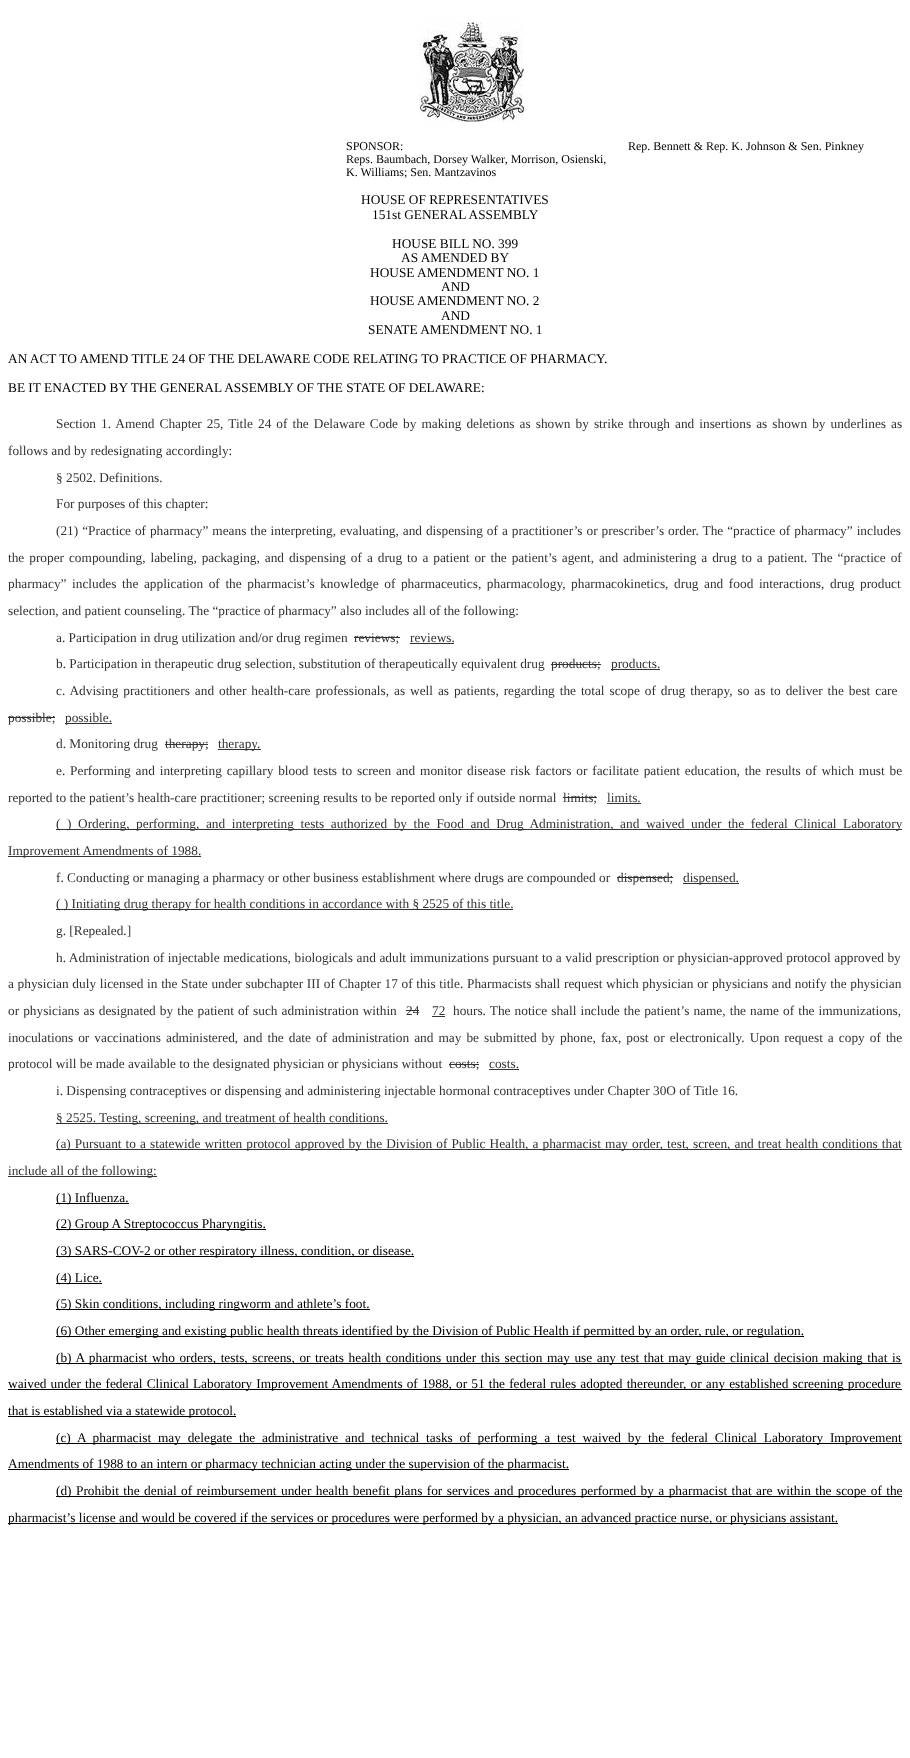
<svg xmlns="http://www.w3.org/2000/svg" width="910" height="1758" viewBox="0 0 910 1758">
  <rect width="100%" height="100%" fill="rgb(255,255,255)"/>
  <image x="419" y="22" width="105" height="100" href="pic1.png"/>
  <g font-family="Liberation Serif" font-size="12" fill="rgb(0,0,0)">
    <text x="346" y="150">SPONSOR:</text>
    <text x="628" y="150">Rep. Bennett &amp; Rep. K. Johnson &amp; Sen. Pinkney</text>
    <text>
      <tspan x="346" y="163">Reps. Baumbach, Dorsey Walker, Morrison, Osienski,</tspan>
      <tspan x="346" y="176">K. Williams; Sen. Mantzavinos</tspan>
    </text>
  </g>
  <g font-family="Liberation Serif" font-size="13.33" fill="rgb(0,0,0)">
    <text x="361" y="204">HOUSE OF REPRESENTATIVES</text>
    <text x="372" y="219">151st GENERAL ASSEMBLY</text>
    <text x="392" y="248">HOUSE BILL NO. 399</text>
    <text x="401" y="262">AS AMENDED BY</text>
    <text x="370" y="277">HOUSE AMENDMENT NO. 1</text>
    <text x="441" y="291">AND</text>
    <text x="370" y="305">HOUSE AMENDMENT NO. 2</text>
    <text x="441" y="320">AND</text>
    <text x="368" y="334">SENATE AMENDMENT NO. 1</text>
    <text x="8" y="363">AN ACT TO AMEND TITLE 24 OF THE DELAWARE CODE RELATING TO PRACTICE OF PHARMACY.</text>
    <text x="8" y="392">BE IT ENACTED BY THE GENERAL ASSEMBLY OF THE STATE OF DELAWARE:</text>
  </g>
  <g font-family="Liberation Serif" font-size="13.33" fill="rgb(51,51,51)">
    <text x="56" y="428" word-spacing="1.7">Section 1. Amend Chapter 25, Title 24 of the Delaware Code by making deletions as shown by strike through and insertions as shown by underlines as</text>
    <text x="8" y="455">follows and by redesignating accordingly:</text>
    <text>
      <tspan x="56" y="482">§ 2502. Definitions.</tspan>
      <tspan x="56" y="508">For purposes of this chapter:</tspan>
    </text>
    <text x="56" y="535" word-spacing="0.6">(21) “Practice of pharmacy” means the interpreting, evaluating, and dispensing of a practitioner’s or prescriber’s order. The “practice of pharmacy” includes</text>
    <text>
      <tspan x="8" y="562" word-spacing="1.6">the proper compounding, labeling, packaging, and dispensing of a drug to a patient or the patient’s agent, and administering a drug to a patient. The “practice of</tspan>
      <tspan x="8" y="588" word-spacing="2.25">pharmacy” includes the application of the pharmacist’s knowledge of pharmaceutics, pharmacology, pharmacokinetics, drug and food interactions, drug product</tspan>
    </text>
    <text x="8" y="615">selection, and patient counseling. The “practice of pharmacy” also includes all of the following:</text>
    <text x="56" y="642">a. Participation in drug utilization and/or drug regimen</text>
    <text x="354" y="642">reviews;</text>
  </g>
  <rect x="354" y="637" width="46" height="1" fill="rgb(51,51,51)"/>
  <text x="410" y="642" font-family="Liberation Serif" font-size="13.33" fill="rgb(51,51,51)">reviews.</text>
  <rect x="410" y="643" width="44" height="1" fill="rgb(51,51,51)"/>
  <g font-family="Liberation Serif" font-size="13.33" fill="rgb(51,51,51)">
    <text x="56" y="668">b. Participation in therapeutic drug selection, substitution of therapeutically equivalent drug</text>
    <text x="551" y="668">products;</text>
  </g>
  <rect x="551" y="664" width="50" height="1" fill="rgb(51,51,51)"/>
  <rect x="611" y="669" width="49" height="1" fill="rgb(51,51,51)"/>
  <g font-family="Liberation Serif" font-size="13.33" fill="rgb(51,51,51)">
    <text x="611" y="668">products.</text>
    <text x="56" y="695" word-spacing="1.6">c. Advising practitioners and other health-care professionals, as well as patients, regarding the total scope of drug therapy, so as to deliver the best care</text>
    <text x="8" y="722">possible;</text>
  </g>
  <rect x="8" y="717" width="47" height="1" fill="rgb(51,51,51)"/>
  <rect x="65" y="723" width="47" height="1" fill="rgb(51,51,51)"/>
  <g font-family="Liberation Serif" font-size="13.33" fill="rgb(51,51,51)">
    <text x="65" y="722">possible.</text>
    <text x="56" y="748">d. Monitoring drug</text>
    <text x="165" y="748">therapy;</text>
  </g>
  <rect x="165" y="744" width="43" height="1" fill="rgb(51,51,51)"/>
  <rect x="218" y="749" width="43" height="1" fill="rgb(51,51,51)"/>
  <g font-family="Liberation Serif" font-size="13.33" fill="rgb(51,51,51)">
    <text x="218" y="748">therapy.</text>
    <text x="56" y="775" word-spacing="1.5">e. Performing and interpreting capillary blood tests to screen and monitor disease risk factors or facilitate patient education, the results of which must be</text>
    <text x="8" y="802">reported to the patient’s health-care practitioner; screening results to be reported only if outside normal</text>
    <text x="563" y="802">limits;</text>
  </g>
  <rect x="563" y="797" width="34" height="1" fill="rgb(51,51,51)"/>
  <text x="607" y="802" font-family="Liberation Serif" font-size="13.33" fill="rgb(51,51,51)">limits.</text>
  <rect x="607" y="803" width="34" height="1" fill="rgb(51,51,51)"/>
  <rect x="56" y="829" width="846" height="1" fill="rgb(51,51,51)"/>
  <text x="56" y="828" word-spacing="3.25" font-family="Liberation Serif" font-size="13.33" fill="rgb(51,51,51)">( ) Ordering, performing, and interpreting tests authorized by the Food and Drug Administration, and waived under the federal Clinical Laboratory</text>
  <rect x="8" y="856" width="193" height="1" fill="rgb(51,51,51)"/>
  <g font-family="Liberation Serif" font-size="13.33" fill="rgb(51,51,51)">
    <text x="8" y="855">Improvement Amendments of 1988.</text>
    <text x="56" y="882">f. Conducting or managing a pharmacy or other business establishment where drugs are compounded or</text>
    <text x="617" y="882">dispensed;</text>
  </g>
  <rect x="617" y="877" width="56" height="1" fill="rgb(51,51,51)"/>
  <rect x="683" y="883" width="56" height="1" fill="rgb(51,51,51)"/>
  <text x="683" y="882" font-family="Liberation Serif" font-size="13.33" fill="rgb(51,51,51)">dispensed.</text>
  <rect x="56" y="909" width="457" height="1" fill="rgb(51,51,51)"/>
  <g font-family="Liberation Serif" font-size="13.33" fill="rgb(51,51,51)">
    <text x="56" y="908">( ) Initiating drug therapy for health conditions in accordance with § 2525 of this title.</text>
    <text x="56" y="935">g. [Repealed.]</text>
    <text x="56" y="962" word-spacing="0.25">h. Administration of injectable medications, biologicals and adult immunizations pursuant to a valid prescription or physician-approved protocol approved by</text>
    <text x="8" y="988" word-spacing="0.35">a physician duly licensed in the State under subchapter III of Chapter 17 of this title. Pharmacists shall request which physician or physicians and notify the physician</text>
    <text x="8" y="1015" word-spacing="0.75">or physicians as designated by the patient of such administration within</text>
    <text x="406" y="1015">24</text>
  </g>
  <rect x="406" y="1010" width="13" height="1" fill="rgb(51,51,51)"/>
  <text x="432" y="1015" font-family="Liberation Serif" font-size="13.33" fill="rgb(51,51,51)">72</text>
  <rect x="432" y="1016" width="13" height="1" fill="rgb(51,51,51)"/>
  <g font-family="Liberation Serif" font-size="13.33" fill="rgb(51,51,51)">
    <text x="453" y="1015" word-spacing="0.75">hours. The notice shall include the patient’s name, the name of the immunizations,</text>
    <text>
      <tspan x="8" y="1042" word-spacing="1.7">inoculations or vaccinations administered, and the date of administration and may be submitted by phone, fax, post or electronically. Upon request a copy of the</tspan>
      <tspan x="8" y="1068">protocol will be made available to the designated physician or physicians without</tspan>
    </text>
    <text x="449" y="1068">costs;</text>
  </g>
  <rect x="449" y="1064" width="30" height="1" fill="rgb(51,51,51)"/>
  <text x="489" y="1068" font-family="Liberation Serif" font-size="13.33" fill="rgb(51,51,51)">costs.</text>
  <rect x="489" y="1069" width="30" height="1" fill="rgb(51,51,51)"/>
  <text x="56" y="1095" font-family="Liberation Serif" font-size="13.33" fill="rgb(51,51,51)">i. Dispensing contraceptives or dispensing and administering injectable hormonal contraceptives under Chapter 30O of Title 16.</text>
  <rect x="56" y="1123" width="332" height="1" fill="rgb(51,51,51)"/>
  <text x="56" y="1122" font-family="Liberation Serif" font-size="13.33" fill="rgb(51,51,51)">§ 2525. Testing, screening, and treatment of health conditions.</text>
  <rect x="56" y="1149" width="846" height="1" fill="rgb(51,51,51)"/>
  <text x="56" y="1148" word-spacing="0.75" font-family="Liberation Serif" font-size="13.33" fill="rgb(51,51,51)">(a) Pursuant to a statewide written protocol approved by the Division of Public Health, a pharmacist may order, test, screen, and treat health conditions that</text>
  <rect x="8" y="1176" width="149" height="1" fill="rgb(51,51,51)"/>
  <text x="8" y="1175" font-family="Liberation Serif" font-size="13.33" fill="rgb(51,51,51)">include all of the following:</text>
  <rect x="56" y="1203" width="73" height="1" fill="rgb(0,0,0)"/>
  <text x="56" y="1202" font-family="Liberation Serif" font-size="13.33" fill="rgb(0,0,0)">(1) Influenza.</text>
  <rect x="56" y="1229" width="210" height="1" fill="rgb(0,0,0)"/>
  <text x="56" y="1228" font-family="Liberation Serif" font-size="13.33" fill="rgb(0,0,0)">(2) Group A Streptococcus Pharyngitis.</text>
  <rect x="56" y="1256" width="358" height="1" fill="rgb(0,0,0)"/>
  <text x="56" y="1255" font-family="Liberation Serif" font-size="13.33" fill="rgb(0,0,0)">(3) SARS-COV-2 or other respiratory illness, condition, or disease.</text>
  <rect x="56" y="1283" width="46" height="1" fill="rgb(0,0,0)"/>
  <text x="56" y="1282" font-family="Liberation Serif" font-size="13.33" fill="rgb(0,0,0)">(4) Lice.</text>
  <rect x="56" y="1309" width="314" height="1" fill="rgb(0,0,0)"/>
  <text x="56" y="1308" font-family="Liberation Serif" font-size="13.33" fill="rgb(0,0,0)">(5) Skin conditions, including ringworm and athlete’s foot.</text>
  <rect x="56" y="1336" width="748" height="1" fill="rgb(0,0,0)"/>
  <text x="56" y="1335" font-family="Liberation Serif" font-size="13.33" fill="rgb(0,0,0)">(6) Other emerging and existing public health threats identified by the Division of Public Health if permitted by an order, rule, or regulation.</text>
  <rect x="56" y="1363" width="846" height="1" fill="rgb(0,0,0)"/>
  <text x="56" y="1362" word-spacing="1.25" font-family="Liberation Serif" font-size="13.33" fill="rgb(0,0,0)">(b) A pharmacist who orders, tests, screens, or treats health conditions under this section may use any test that may guide clinical decision making that is</text>
  <rect x="8" y="1389" width="894" height="1" fill="rgb(0,0,0)"/>
  <text x="8" y="1388" word-spacing="0.8" font-family="Liberation Serif" font-size="13.33" fill="rgb(0,0,0)">waived under the federal Clinical Laboratory Improvement Amendments of 1988, or 51 the federal rules adopted thereunder, or any established screening procedure</text>
  <rect x="8" y="1416" width="228" height="1" fill="rgb(0,0,0)"/>
  <text x="8" y="1415" font-family="Liberation Serif" font-size="13.33" fill="rgb(0,0,0)">that is established via a statewide protocol.</text>
  <rect x="56" y="1443" width="846" height="1" fill="rgb(0,0,0)"/>
  <text x="56" y="1442" word-spacing="3.5" font-family="Liberation Serif" font-size="13.33" fill="rgb(0,0,0)">(c) A pharmacist may delegate the administrative and technical tasks of performing a test waived by the federal Clinical Laboratory Improvement</text>
  <rect x="8" y="1469" width="561" height="1" fill="rgb(0,0,0)"/>
  <text x="8" y="1468" font-family="Liberation Serif" font-size="13.33" fill="rgb(0,0,0)">Amendments of 1988 to an intern or pharmacy technician acting under the supervision of the pharmacist.</text>
  <rect x="56" y="1496" width="846" height="1" fill="rgb(0,0,0)"/>
  <text x="56" y="1495" word-spacing="1.1" font-family="Liberation Serif" font-size="13.33" fill="rgb(0,0,0)">(d) Prohibit the denial of reimbursement under health benefit plans for services and procedures performed by a pharmacist that are within the scope of the</text>
  <rect x="8" y="1523" width="830" height="1" fill="rgb(0,0,0)"/>
  <text x="8" y="1522" font-family="Liberation Serif" font-size="13.33" fill="rgb(0,0,0)">pharmacist’s license and would be covered if the services or procedures were performed by a physician, an advanced practice nurse, or physicians assistant.</text>
</svg>
